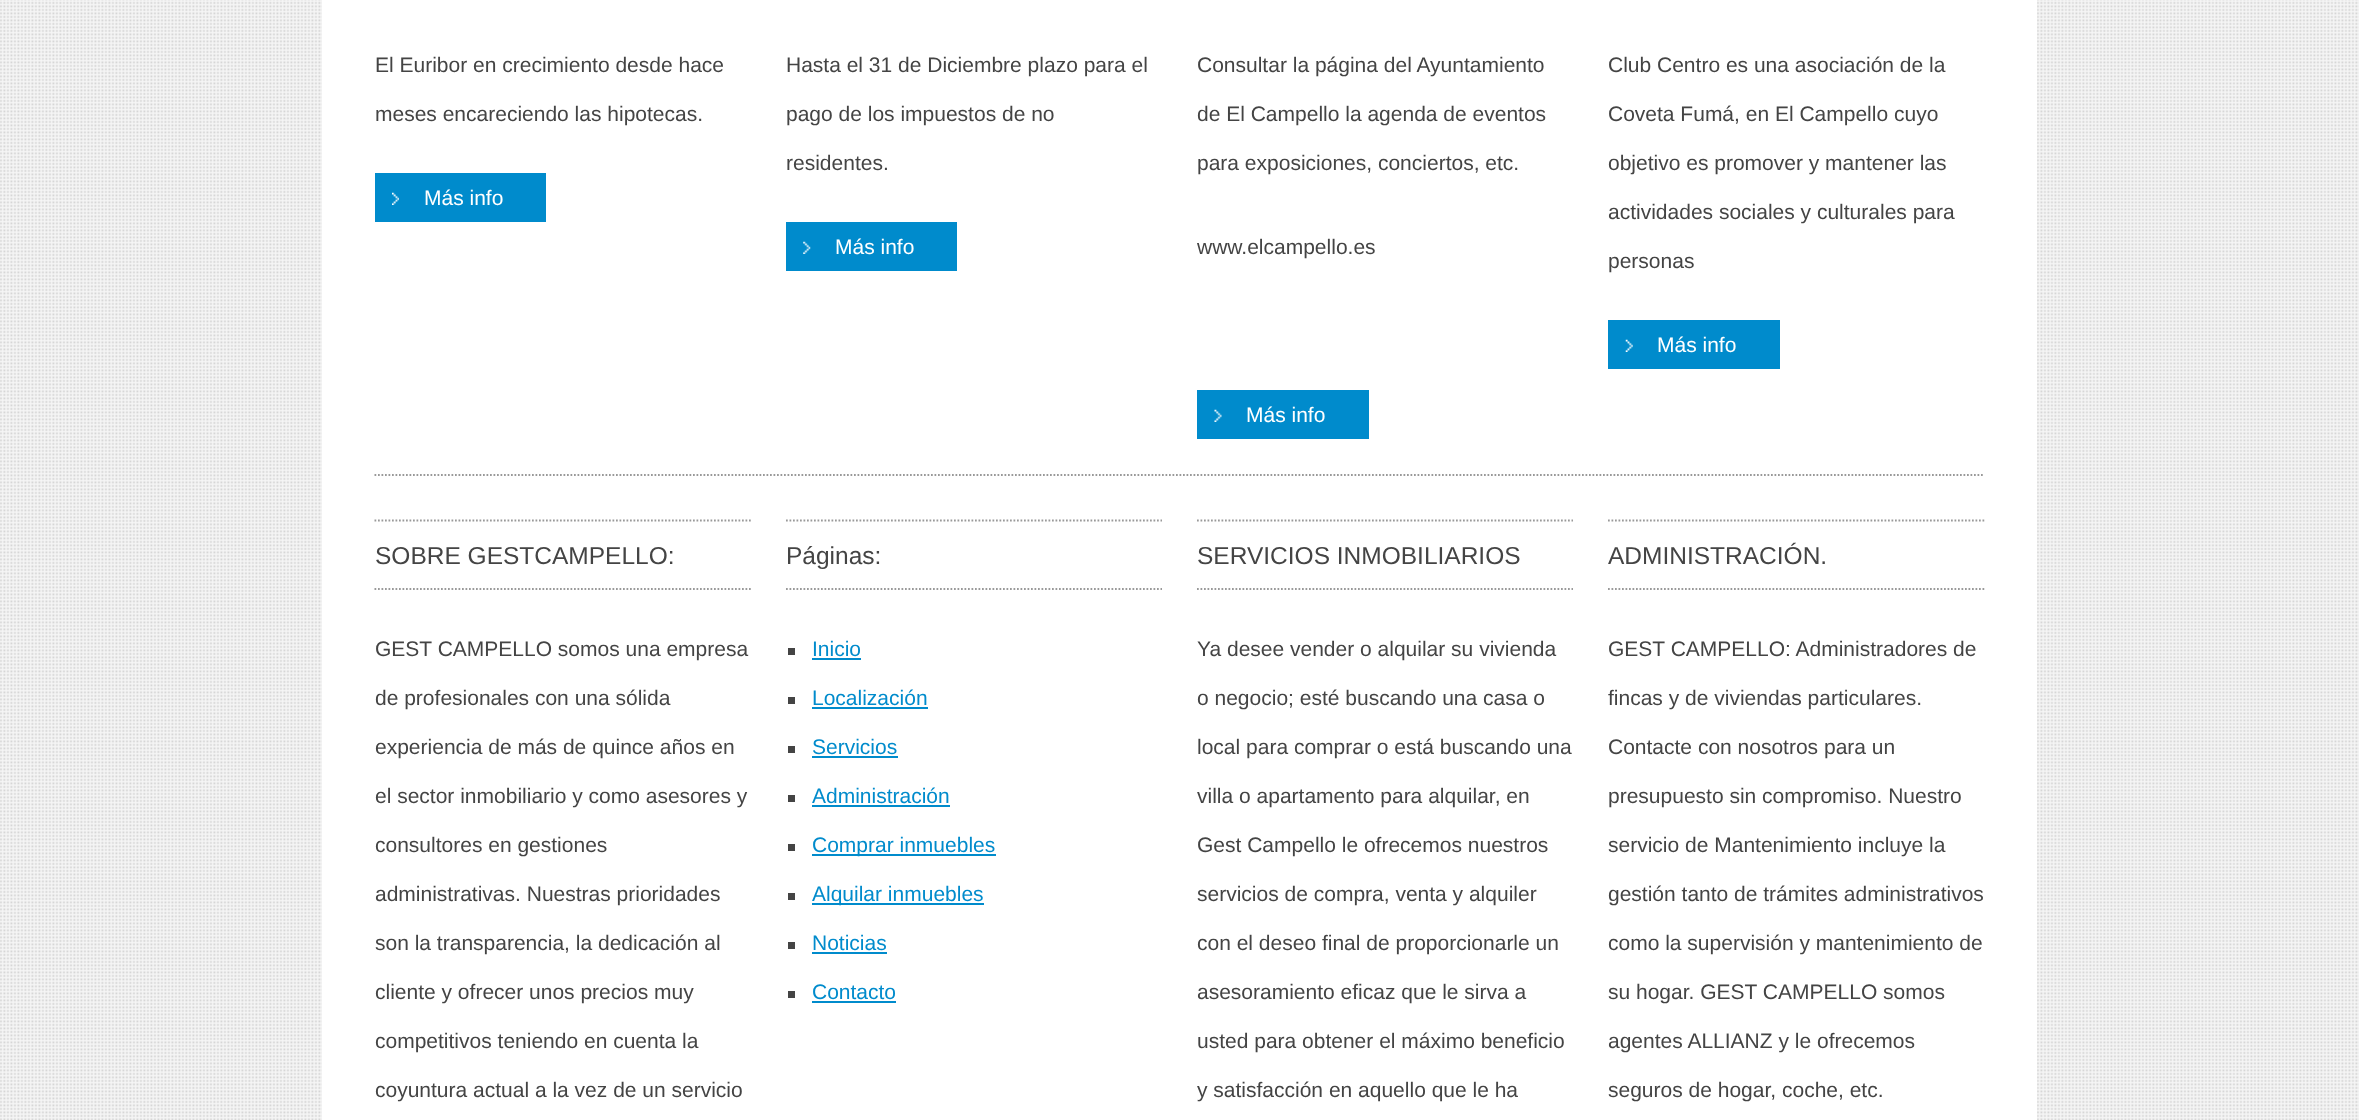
<svg xmlns="http://www.w3.org/2000/svg" width="2359" height="1120" viewBox="0 0 2359 1120">
  <rect width="100%" height="100%" fill="rgb(246,246,246)"/>
  <image x="0" y="0" width="2359" height="1120" href="pic1.png"/>
  <rect x="322" y="0" width="1715" height="1120" fill="rgb(255,255,255)"/>
  <g font-family="Liberation Sans" font-size="21" fill="rgb(68,68,68)">
    <text x="375" y="72">El Euribor en crecimiento desde hace</text>
    <text x="375" y="121">meses encareciendo las hipotecas.</text>
  </g>
  <rect x="375" y="173" width="171" height="49" fill="rgb(0,139,204)"/>
  <image x="392" y="192" width="7" height="13" href="pic2.png"/>
  <text x="424" y="205" font-family="Liberation Sans" font-size="21" fill="rgb(255,255,255)">Más info</text>
  <g font-family="Liberation Sans" font-size="21" fill="rgb(68,68,68)">
    <text x="786" y="72">Hasta el 31 de Diciembre plazo para el</text>
    <text x="786" y="121">pago de los impuestos de no</text>
    <text x="786" y="170">residentes.</text>
  </g>
  <rect x="786" y="222" width="171" height="49" fill="rgb(0,139,204)"/>
  <image x="803" y="241" width="8" height="13" href="pic3.png"/>
  <text x="835" y="254" font-family="Liberation Sans" font-size="21" fill="rgb(255,255,255)">Más info</text>
  <g font-family="Liberation Sans" font-size="21" fill="rgb(68,68,68)">
    <text x="1197" y="72">Consultar la página del Ayuntamiento</text>
    <text x="1197" y="121">de El Campello la agenda de eventos</text>
    <text x="1197" y="170">para exposiciones, conciertos, etc.</text>
    <text x="1197" y="254">www.elcampello.es</text>
  </g>
  <rect x="1197" y="390" width="172" height="49" fill="rgb(0,139,204)"/>
  <image x="1214" y="409" width="8" height="13" href="pic4.png"/>
  <text x="1246" y="422" font-family="Liberation Sans" font-size="21" fill="rgb(255,255,255)">Más info</text>
  <g font-family="Liberation Sans" font-size="21" fill="rgb(68,68,68)">
    <text x="1608" y="72">Club Centro es una asociación de la</text>
    <text x="1608" y="121">Coveta Fumá, en El Campello cuyo</text>
    <text x="1608" y="170">objetivo es promover y mantener las</text>
    <text x="1608" y="219">actividades sociales y culturales para</text>
    <text x="1608" y="268">personas</text>
  </g>
  <rect x="1608" y="320" width="172" height="49" fill="rgb(0,139,204)"/>
  <image x="1625" y="339" width="8" height="13" href="pic5.png"/>
  <text x="1657" y="352" font-family="Liberation Sans" font-size="21" fill="rgb(255,255,255)">Más info</text>
  <path d="M374.5 475H1984.5" fill="none" stroke="rgb(153,153,153)" stroke-width="1.8" stroke-dasharray="1.75 1.75"/>
  <path d="M374.5 520.5H751" fill="none" stroke="rgb(153,153,153)" stroke-width="1.8" stroke-dasharray="1.75 1.75"/>
  <path d="M374.5 589H751" fill="none" stroke="rgb(153,153,153)" stroke-width="1.8" stroke-dasharray="1.75 1.75"/>
  <text x="375" y="564" font-family="Liberation Sans" font-size="24.5" fill="rgb(68,68,68)">SOBRE GESTCAMPELLO:</text>
  <g font-family="Liberation Sans" font-size="21" fill="rgb(68,68,68)">
    <text x="375" y="656">GEST CAMPELLO somos una empresa</text>
    <text x="375" y="705">de profesionales con una sólida</text>
    <text x="375" y="754">experiencia de más de quince años en</text>
    <text x="375" y="803">el sector inmobiliario y como asesores y</text>
    <text x="375" y="852">consultores en gestiones</text>
    <text x="375" y="901">administrativas. Nuestras prioridades</text>
    <text x="375" y="950">son la transparencia, la dedicación al</text>
    <text x="375" y="999">cliente y ofrecer unos precios muy</text>
    <text x="375" y="1048">competitivos teniendo en cuenta la</text>
    <text x="375" y="1097">coyuntura actual a la vez de un servicio</text>
  </g>
  <path d="M786 520.5H1162" fill="none" stroke="rgb(153,153,153)" stroke-width="1.8" stroke-dasharray="1.75 1.75"/>
  <path d="M786 589H1162" fill="none" stroke="rgb(153,153,153)" stroke-width="1.8" stroke-dasharray="1.75 1.75"/>
  <text x="786" y="564" font-family="Liberation Sans" font-size="24.5" fill="rgb(68,68,68)">Páginas:</text>
  <rect x="788" y="648" width="7" height="7" fill="rgb(68,68,68)"/>
  <text x="812" y="656" font-family="Liberation Sans" font-size="21" fill="rgb(0,139,204)">Inicio</text>
  <rect x="812" y="658" width="49" height="2" fill="rgb(0,139,204)"/>
  <rect x="788" y="697" width="7" height="7" fill="rgb(68,68,68)"/>
  <text x="812" y="705" font-family="Liberation Sans" font-size="21" fill="rgb(0,139,204)">Localización</text>
  <rect x="812" y="707" width="116" height="2" fill="rgb(0,139,204)"/>
  <rect x="788" y="746" width="7" height="7" fill="rgb(68,68,68)"/>
  <text x="812" y="754" font-family="Liberation Sans" font-size="21" fill="rgb(0,139,204)">Servicios</text>
  <rect x="812" y="756" width="86" height="2" fill="rgb(0,139,204)"/>
  <rect x="788" y="795" width="7" height="7" fill="rgb(68,68,68)"/>
  <text x="812" y="803" font-family="Liberation Sans" font-size="21" fill="rgb(0,139,204)">Administración</text>
  <rect x="812" y="805" width="138" height="2" fill="rgb(0,139,204)"/>
  <rect x="788" y="844" width="7" height="7" fill="rgb(68,68,68)"/>
  <rect x="812" y="854" width="184" height="2" fill="rgb(0,139,204)"/>
  <text x="812" y="852" font-family="Liberation Sans" font-size="21" fill="rgb(0,139,204)">Comprar inmuebles</text>
  <rect x="788" y="893" width="7" height="7" fill="rgb(68,68,68)"/>
  <rect x="812" y="903" width="172" height="2" fill="rgb(0,139,204)"/>
  <text x="812" y="901" font-family="Liberation Sans" font-size="21" fill="rgb(0,139,204)">Alquilar inmuebles</text>
  <rect x="788" y="942" width="7" height="7" fill="rgb(68,68,68)"/>
  <text x="812" y="950" font-family="Liberation Sans" font-size="21" fill="rgb(0,139,204)">Noticias</text>
  <rect x="812" y="952" width="75" height="2" fill="rgb(0,139,204)"/>
  <rect x="788" y="991" width="7" height="7" fill="rgb(68,68,68)"/>
  <text x="812" y="999" font-family="Liberation Sans" font-size="21" fill="rgb(0,139,204)">Contacto</text>
  <rect x="812" y="1001" width="84" height="2" fill="rgb(0,139,204)"/>
  <path d="M1197 520.5H1573" fill="none" stroke="rgb(153,153,153)" stroke-width="1.8" stroke-dasharray="1.75 1.75"/>
  <path d="M1197 589H1573" fill="none" stroke="rgb(153,153,153)" stroke-width="1.8" stroke-dasharray="1.75 1.75"/>
  <text x="1197" y="564" font-family="Liberation Sans" font-size="24.5" fill="rgb(68,68,68)">SERVICIOS INMOBILIARIOS</text>
  <g font-family="Liberation Sans" font-size="21" fill="rgb(68,68,68)">
    <text x="1197" y="656">Ya desee vender o alquilar su vivienda</text>
    <text x="1197" y="705">o negocio; esté buscando una casa o</text>
    <text x="1197" y="754">local para comprar o está buscando una</text>
    <text x="1197" y="803">villa o apartamento para alquilar, en</text>
    <text x="1197" y="852">Gest Campello le ofrecemos nuestros</text>
    <text x="1197" y="901">servicios de compra, venta y alquiler</text>
    <text x="1197" y="950">con el deseo final de proporcionarle un</text>
    <text x="1197" y="999">asesoramiento eficaz que le sirva a</text>
    <text x="1197" y="1048">usted para obtener el máximo beneficio</text>
    <text x="1197" y="1097">y satisfacción en aquello que le ha</text>
  </g>
  <path d="M1608 520.5H1984.5" fill="none" stroke="rgb(153,153,153)" stroke-width="1.8" stroke-dasharray="1.75 1.75"/>
  <path d="M1608 589H1984.5" fill="none" stroke="rgb(153,153,153)" stroke-width="1.8" stroke-dasharray="1.75 1.75"/>
  <text x="1608" y="564" font-family="Liberation Sans" font-size="24.5" fill="rgb(68,68,68)">ADMINISTRACIÓN.</text>
  <g font-family="Liberation Sans" font-size="21" fill="rgb(68,68,68)">
    <text x="1608" y="656">GEST CAMPELLO: Administradores de</text>
    <text x="1608" y="705">fincas y de viviendas particulares.</text>
    <text x="1608" y="754">Contacte con nosotros para un</text>
    <text x="1608" y="803">presupuesto sin compromiso. Nuestro</text>
    <text x="1608" y="852">servicio de Mantenimiento incluye la</text>
    <text x="1608" y="901">gestión tanto de trámites administrativos</text>
    <text x="1608" y="950">como la supervisión y mantenimiento de</text>
    <text x="1608" y="999">su hogar. GEST CAMPELLO somos</text>
    <text x="1608" y="1048">agentes ALLIANZ y le ofrecemos</text>
    <text x="1608" y="1097">seguros de hogar, coche, etc.</text>
  </g>
</svg>
